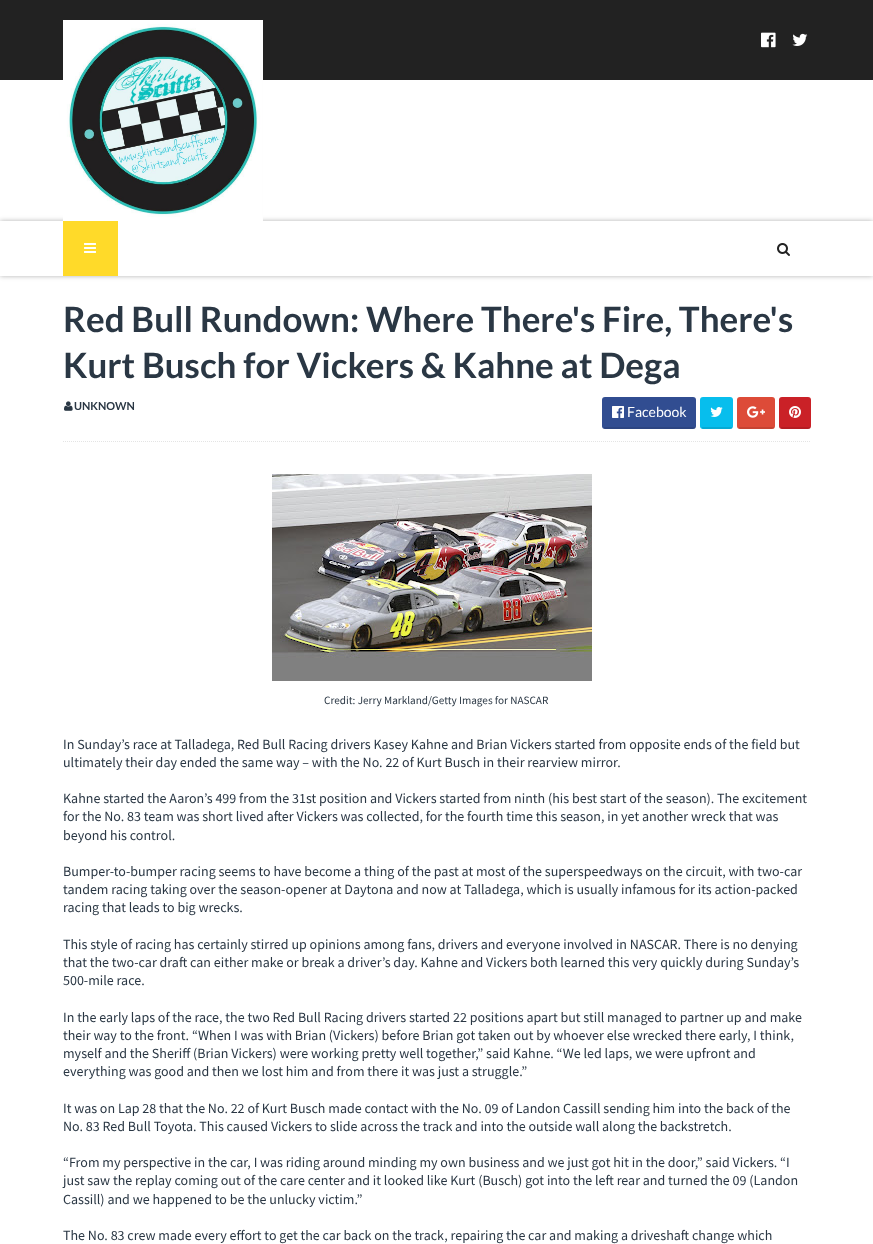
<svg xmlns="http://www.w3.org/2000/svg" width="873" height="1244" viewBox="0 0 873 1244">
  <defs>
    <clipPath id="clip1"><path d="M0 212H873V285H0ZM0 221H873V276H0Z" clip-rule="evenodd"/></clipPath>
  </defs>
  <rect width="100%" height="100%" fill="rgb(255,255,255)"/>
  <rect x="0" y="0" width="873" height="80" fill="rgb(34,34,34)"/>
  <g clip-path="url(#clip1)">
    <rect x="0" y="221" width="873" height="55" fill="rgba(0,0,0,0.3)" filter="blur(2.5px)"/>
  </g>
  <image x="63" y="20" width="200" height="201" href="pic1.png"/>
  <image x="761" y="32" width="15" height="16" href="pic2.png"/>
  <image x="792" y="33" width="16" height="13" href="pic3.png"/>
  <rect x="63" y="221" width="55" height="55" fill="rgb(255,218,41)"/>
  <image x="84" y="243" width="12" height="10" href="pic4.png"/>
  <image x="777" y="243" width="13" height="13" href="pic5.png"/>
  <g font-family="Lato" font-size="35" font-weight="bold" fill="rgb(42,55,68)">
    <text>
      <tspan x="63" y="332">Red Bull Rundown: Where There's Fire, There's</tspan>
      <tspan x="63" y="378">Kurt Busch for Vickers &amp; Kahne at Dega</tspan>
    </text>
  </g>
  <path d="M63 441.5H811" fill="none" stroke="rgb(228,228,228)" stroke-dasharray="1 1"/>
  <image x="64" y="401" width="9" height="10" href="pic6.png"/>
  <text x="74" y="410" font-family="Lato" font-size="11" font-weight="bold" fill="rgb(42,55,68)">UNKNOWN</text>
  <rect x="602" y="397" width="94" height="32" rx="3" fill="rgb(49,77,145)"/>
  <rect x="604" y="427" width="91" height="2" fill="rgba(0,0,0,0.1)"/>
  <image x="612" y="406" width="12" height="12" href="pic7.png"/>
  <text x="627" y="417" font-family="Lato" font-size="14" fill="rgb(255,255,255)">Facebook</text>
  <rect x="700" y="397" width="33" height="32" rx="3" fill="rgb(7,190,237)"/>
  <rect x="702" y="427" width="30" height="2" fill="rgba(0,0,0,0.1)"/>
  <image x="710" y="407" width="13" height="10" href="pic8.png"/>
  <rect x="737" y="397" width="38" height="32" rx="3" fill="rgb(221,75,56)"/>
  <rect x="739" y="427" width="35" height="2" fill="rgba(0,0,0,0.1)"/>
  <image x="747" y="406" width="18" height="12" href="pic9.png"/>
  <rect x="779" y="397" width="32" height="32" rx="3" fill="rgb(202,33,39)"/>
  <rect x="781" y="427" width="29" height="2" fill="rgba(0,0,0,0.1)"/>
  <image x="789" y="406" width="12" height="12" href="pic10.png"/>
  <image x="272" y="474" width="320" height="207" href="pic11.png"/>
  <text x="324" y="704" font-family="Source Sans Pro" font-size="11.2" fill="rgb(42,55,68)">Credit: Jerry Markland/Getty Images for NASCAR</text>
  <g font-family="Source Sans Pro" font-size="14" fill="rgb(42,55,68)">
    <text>
      <tspan x="63" y="749">In Sunday’s race at Talladega, Red Bull Racing drivers Kasey Kahne and Brian Vickers started from opposite ends of the field but</tspan>
      <tspan x="63" y="767">ultimately their day ended the same way – with the No. 22 of Kurt Busch in their rearview mirror.</tspan>
    </text>
    <text>
      <tspan x="63" y="803">Kahne started the Aaron’s 499 from the 31st position and Vickers started from ninth (his best start of the season). The excitement</tspan>
      <tspan x="63" y="821">for the No. 83 team was short lived after Vickers was collected, for the fourth time this season, in yet another wreck that was</tspan>
      <tspan x="63" y="840">beyond his control.</tspan>
    </text>
    <text>
      <tspan x="63" y="876">Bumper-to-bumper racing seems to have become a thing of the past at most of the superspeedways on the circuit, with two-car</tspan>
      <tspan x="63" y="894">tandem racing taking over the season-opener at Daytona and now at Talladega, which is usually infamous for its action-packed</tspan>
      <tspan x="63" y="912">racing that leads to big wrecks.</tspan>
    </text>
    <text>
      <tspan x="63" y="949">This style of racing has certainly stirred up opinions among fans, drivers and everyone involved in NASCAR. There is no denying</tspan>
      <tspan x="63" y="967">that the two-car draft can either make or break a driver’s day. Kahne and Vickers both learned this very quickly during Sunday’s</tspan>
      <tspan x="63" y="985">500-mile race.</tspan>
    </text>
    <text>
      <tspan x="63" y="1022">In the early laps of the race, the two Red Bull Racing drivers started 22 positions apart but still managed to partner up and make</tspan>
      <tspan x="63" y="1040">their way to the front. “When I was with Brian (Vickers) before Brian got taken out by whoever else wrecked there early, I think,</tspan>
      <tspan x="63" y="1058">myself and the Sheriff (Brian Vickers) were working pretty well together,” said Kahne. “We led laps, we were upfront and</tspan>
      <tspan x="63" y="1076">everything was good and then we lost him and from there it was just a struggle.”</tspan>
    </text>
    <text>
      <tspan x="63" y="1113">It was on Lap 28 that the No. 22 of Kurt Busch made contact with the No. 09 of Landon Cassill sending him into the back of the</tspan>
      <tspan x="63" y="1131">No. 83 Red Bull Toyota. This caused Vickers to slide across the track and into the outside wall along the backstretch.</tspan>
    </text>
    <text>
      <tspan x="63" y="1167">“From my perspective in the car, I was riding around minding my own business and we just got hit in the door,” said Vickers. “I</tspan>
      <tspan x="63" y="1185">just saw the replay coming out of the care center and it looked like Kurt (Busch) got into the left rear and turned the 09 (Landon</tspan>
      <tspan x="63" y="1204">Cassill) and we happened to be the unlucky victim.”</tspan>
    </text>
    <text x="63" y="1240">The No. 83 crew made every effort to get the car back on the track, repairing the car and making a driveshaft change which</text>
  </g>
</svg>
